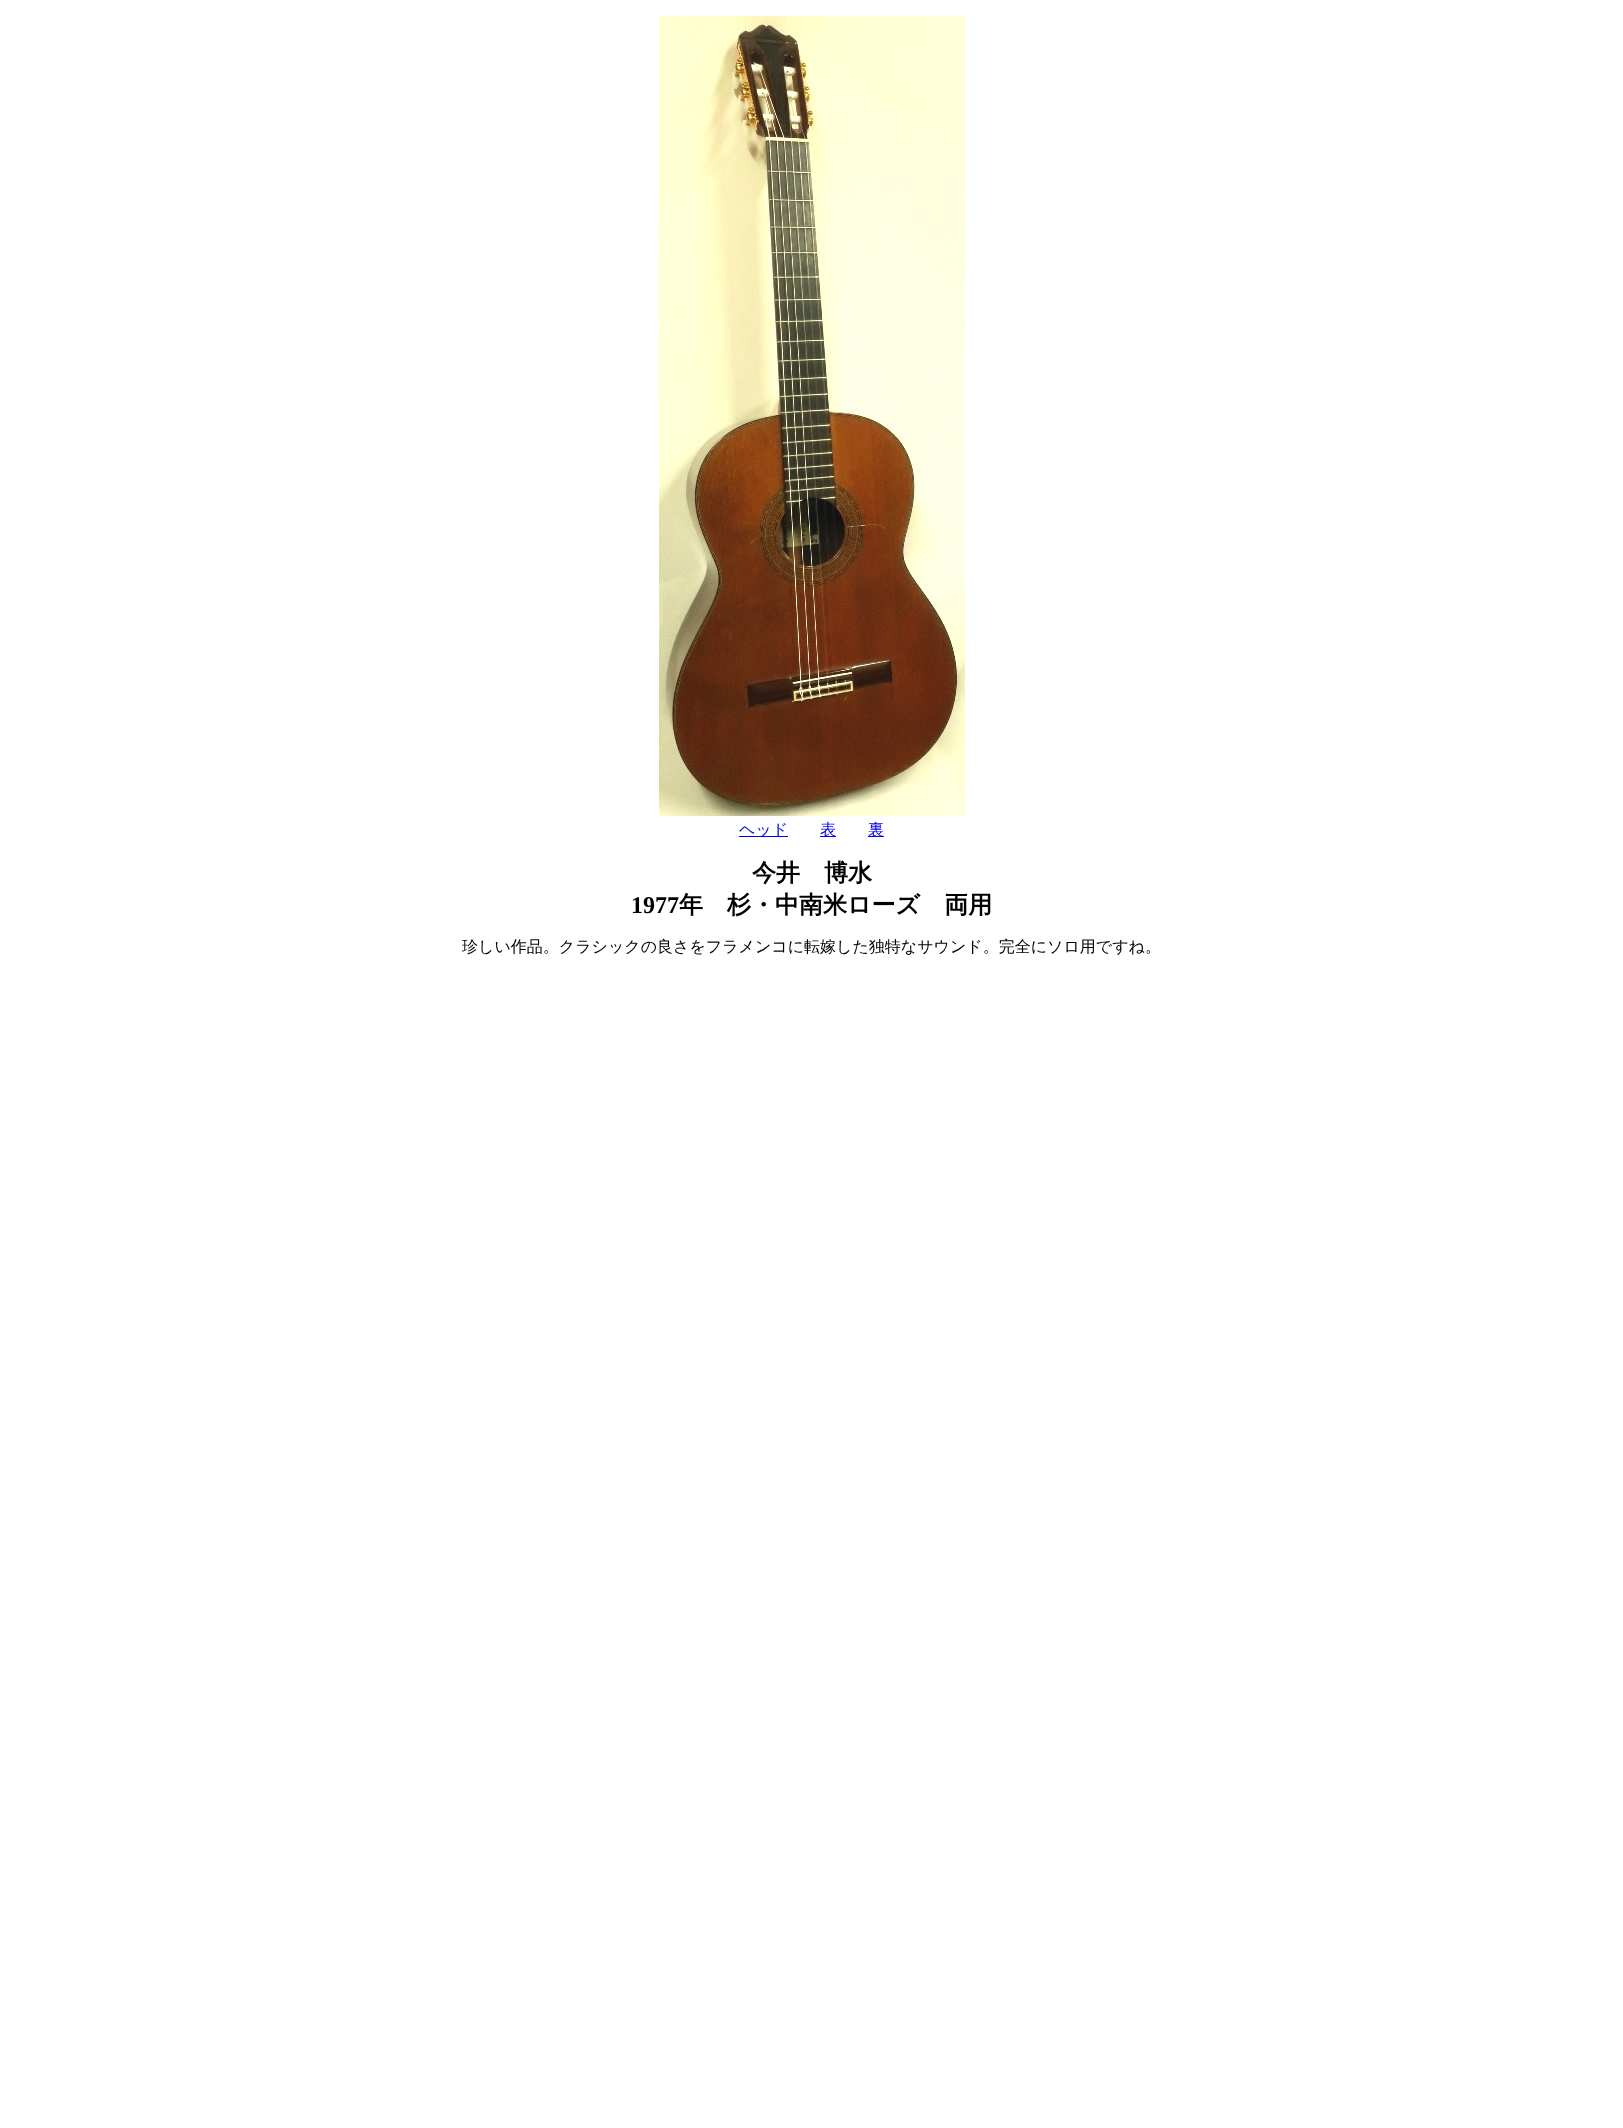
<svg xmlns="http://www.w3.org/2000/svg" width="1623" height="2128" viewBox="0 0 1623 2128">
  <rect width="100%" height="100%" fill="rgb(255,255,255)"/>
  <image x="659" y="16" width="306" height="800" href="pic1.png"/>
  <rect x="739" y="836" width="49" height="1" fill="rgb(0,0,238)"/>
  <text x="739" y="835" font-family="WenQuanYi Zen Hei" font-size="16" font-weight="500" fill="rgb(0,0,238)">ヘッド</text>
  <rect x="820" y="836" width="16" height="1" fill="rgb(0,0,238)"/>
  <text x="820" y="835" font-family="WenQuanYi Zen Hei" font-size="16" font-weight="500" fill="rgb(0,0,238)">表</text>
  <rect x="868" y="836" width="16" height="1" fill="rgb(0,0,238)"/>
  <text x="868" y="835" font-family="WenQuanYi Zen Hei" font-size="16" font-weight="500" fill="rgb(0,0,238)">裏</text>
  <text x="752" y="881" font-family="WenQuanYi Zen Hei" font-size="24" font-weight="bold" fill="rgb(0,0,0)">今井　博水</text>
  <text x="631" y="913" font-family="Liberation Serif" font-size="24" font-weight="bold" fill="rgb(0,0,0)">1977</text>
  <text x="679" y="913" font-family="WenQuanYi Zen Hei" font-size="24" font-weight="bold" fill="rgb(0,0,0)">年　杉・中南米ローズ　両用</text>
  <text x="462" y="952" font-family="WenQuanYi Zen Hei" font-size="16" font-weight="500" fill="rgb(0,0,0)">珍しい作品。クラシックの良さをフラメンコに転嫁した独特なサウンド。完全にソロ用ですね。</text>
</svg>
